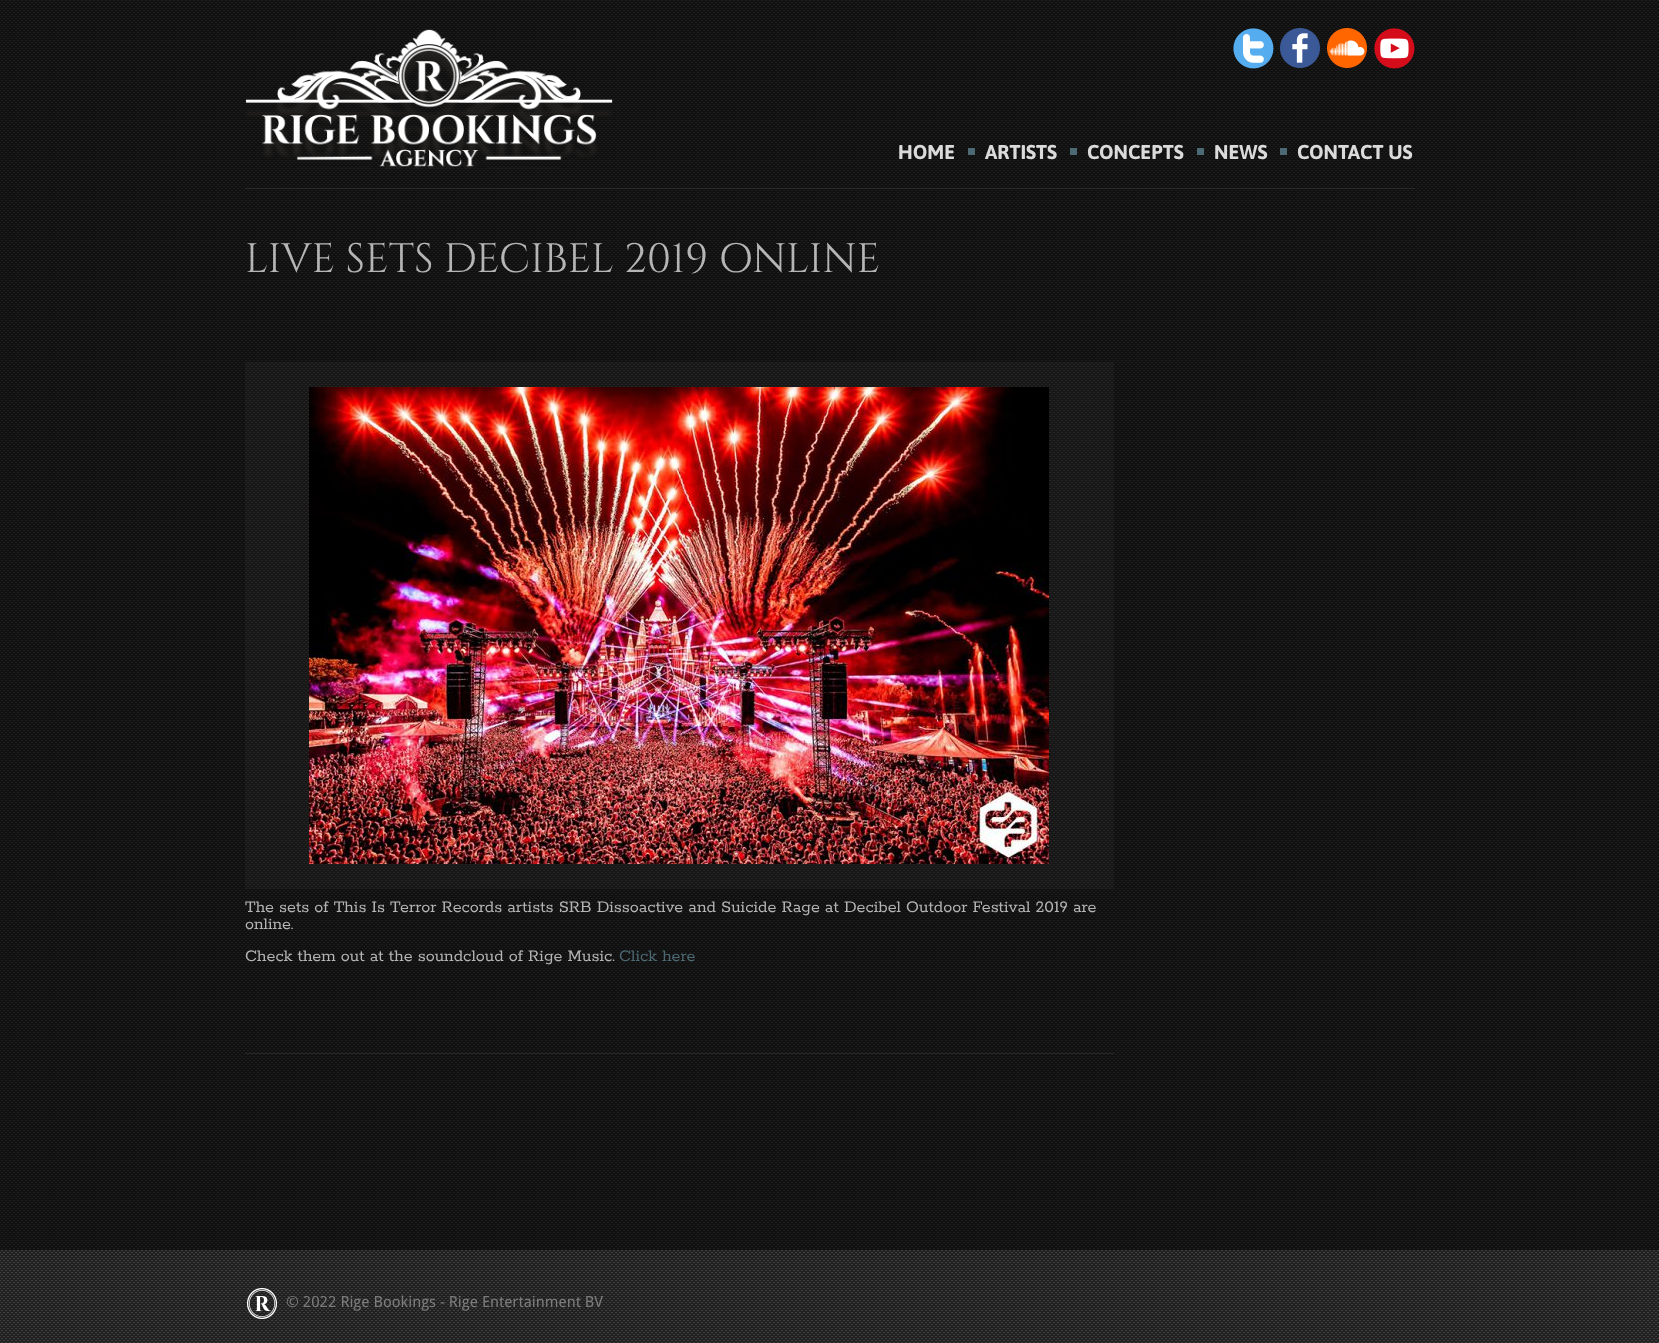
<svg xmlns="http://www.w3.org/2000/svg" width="1659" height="1343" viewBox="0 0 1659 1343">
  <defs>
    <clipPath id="clip1"><rect x="245" y="362" width="869" height="656"/></clipPath>
  </defs>
  <rect width="100%" height="100%" fill="rgb(255,255,255)"/>
  <image x="0" y="0" width="1659" height="1250" href="pic1.png"/>
  <rect x="245" y="188" width="1170" height="1" fill="rgba(226,226,226,0.1)"/>
  <image x="1233" y="28" width="41" height="41" href="pic2.png"/>
  <image x="1280" y="28" width="40" height="40" href="pic3.png"/>
  <image x="1327" y="28" width="40" height="40" href="pic4.png"/>
  <image x="1374" y="28" width="41" height="41" href="pic5.png"/>
  <image x="245" y="29" width="368" height="140" href="pic6.png"/>
  <text x="898" y="159" font-family="Asap" font-size="20" font-weight="bold" fill="rgb(219,219,219)">HOME</text>
  <rect x="968" y="148" width="7" height="7" fill="rgb(77,105,116)"/>
  <text x="985" y="159" font-family="Asap" font-size="20" font-weight="bold" fill="rgb(219,219,219)">ARTISTS</text>
  <rect x="1070" y="148" width="7" height="7" fill="rgb(77,105,116)"/>
  <text x="1087" y="159" font-family="Asap" font-size="20" font-weight="bold" fill="rgb(219,219,219)">CONCEPTS</text>
  <rect x="1197" y="148" width="7" height="7" fill="rgb(77,105,116)"/>
  <text x="1214" y="159" font-family="Asap" font-size="20" font-weight="bold" fill="rgb(219,219,219)">NEWS</text>
  <rect x="1280" y="148" width="7" height="7" fill="rgb(77,105,116)"/>
  <text x="1297" y="159" font-family="Asap" font-size="20" font-weight="bold" fill="rgb(219,219,219)">CONTACT US</text>
  <text x="245" y="272" font-family="Cinzel" font-size="41" fill="rgb(181,181,181)">LIVE SETS DECIBEL 2019 ONLINE</text>
  <rect x="245" y="362" width="869" height="527" fill="rgba(255,255,255,0.03)"/>
  <image x="309" y="387" width="740" height="477" href="pic7.png"/>
  <g clip-path="url(#clip1)">
    <text x="245" y="912" font-family="Rokkitt" font-size="18" font-weight="600" fill="rgb(181,181,181)">The sets of This Is Terror Records artists SRB Dissoactive and Suicide Rage at Decibel Outdoor Festival 2019 are</text>
  </g>
  <g font-family="Rokkitt" font-size="18" font-weight="600" fill="rgb(181,181,181)">
    <text>
      <tspan x="245" y="929">online.</tspan>
      <tspan x="245" y="961">Check them out at the soundcloud of Rige Music.</tspan>
    </text>
  </g>
  <text x="619" y="961" font-family="Rokkitt" font-size="18" font-weight="600" fill="rgb(77,105,116)">Click here</text>
  <rect x="245" y="1053" width="869" height="1" fill="rgba(226,226,226,0.1)"/>
  <image x="0" y="1250" width="1659" height="93" href="pic8.png"/>
  <image x="247" y="1288" width="30" height="31" href="pic9.png"/>
  <text x="286" y="1307" font-family="Droid Sans" font-size="15.3" fill="rgb(125,125,126)">© 2022 Rige Bookings - Rige Entertainment BV</text>
</svg>
